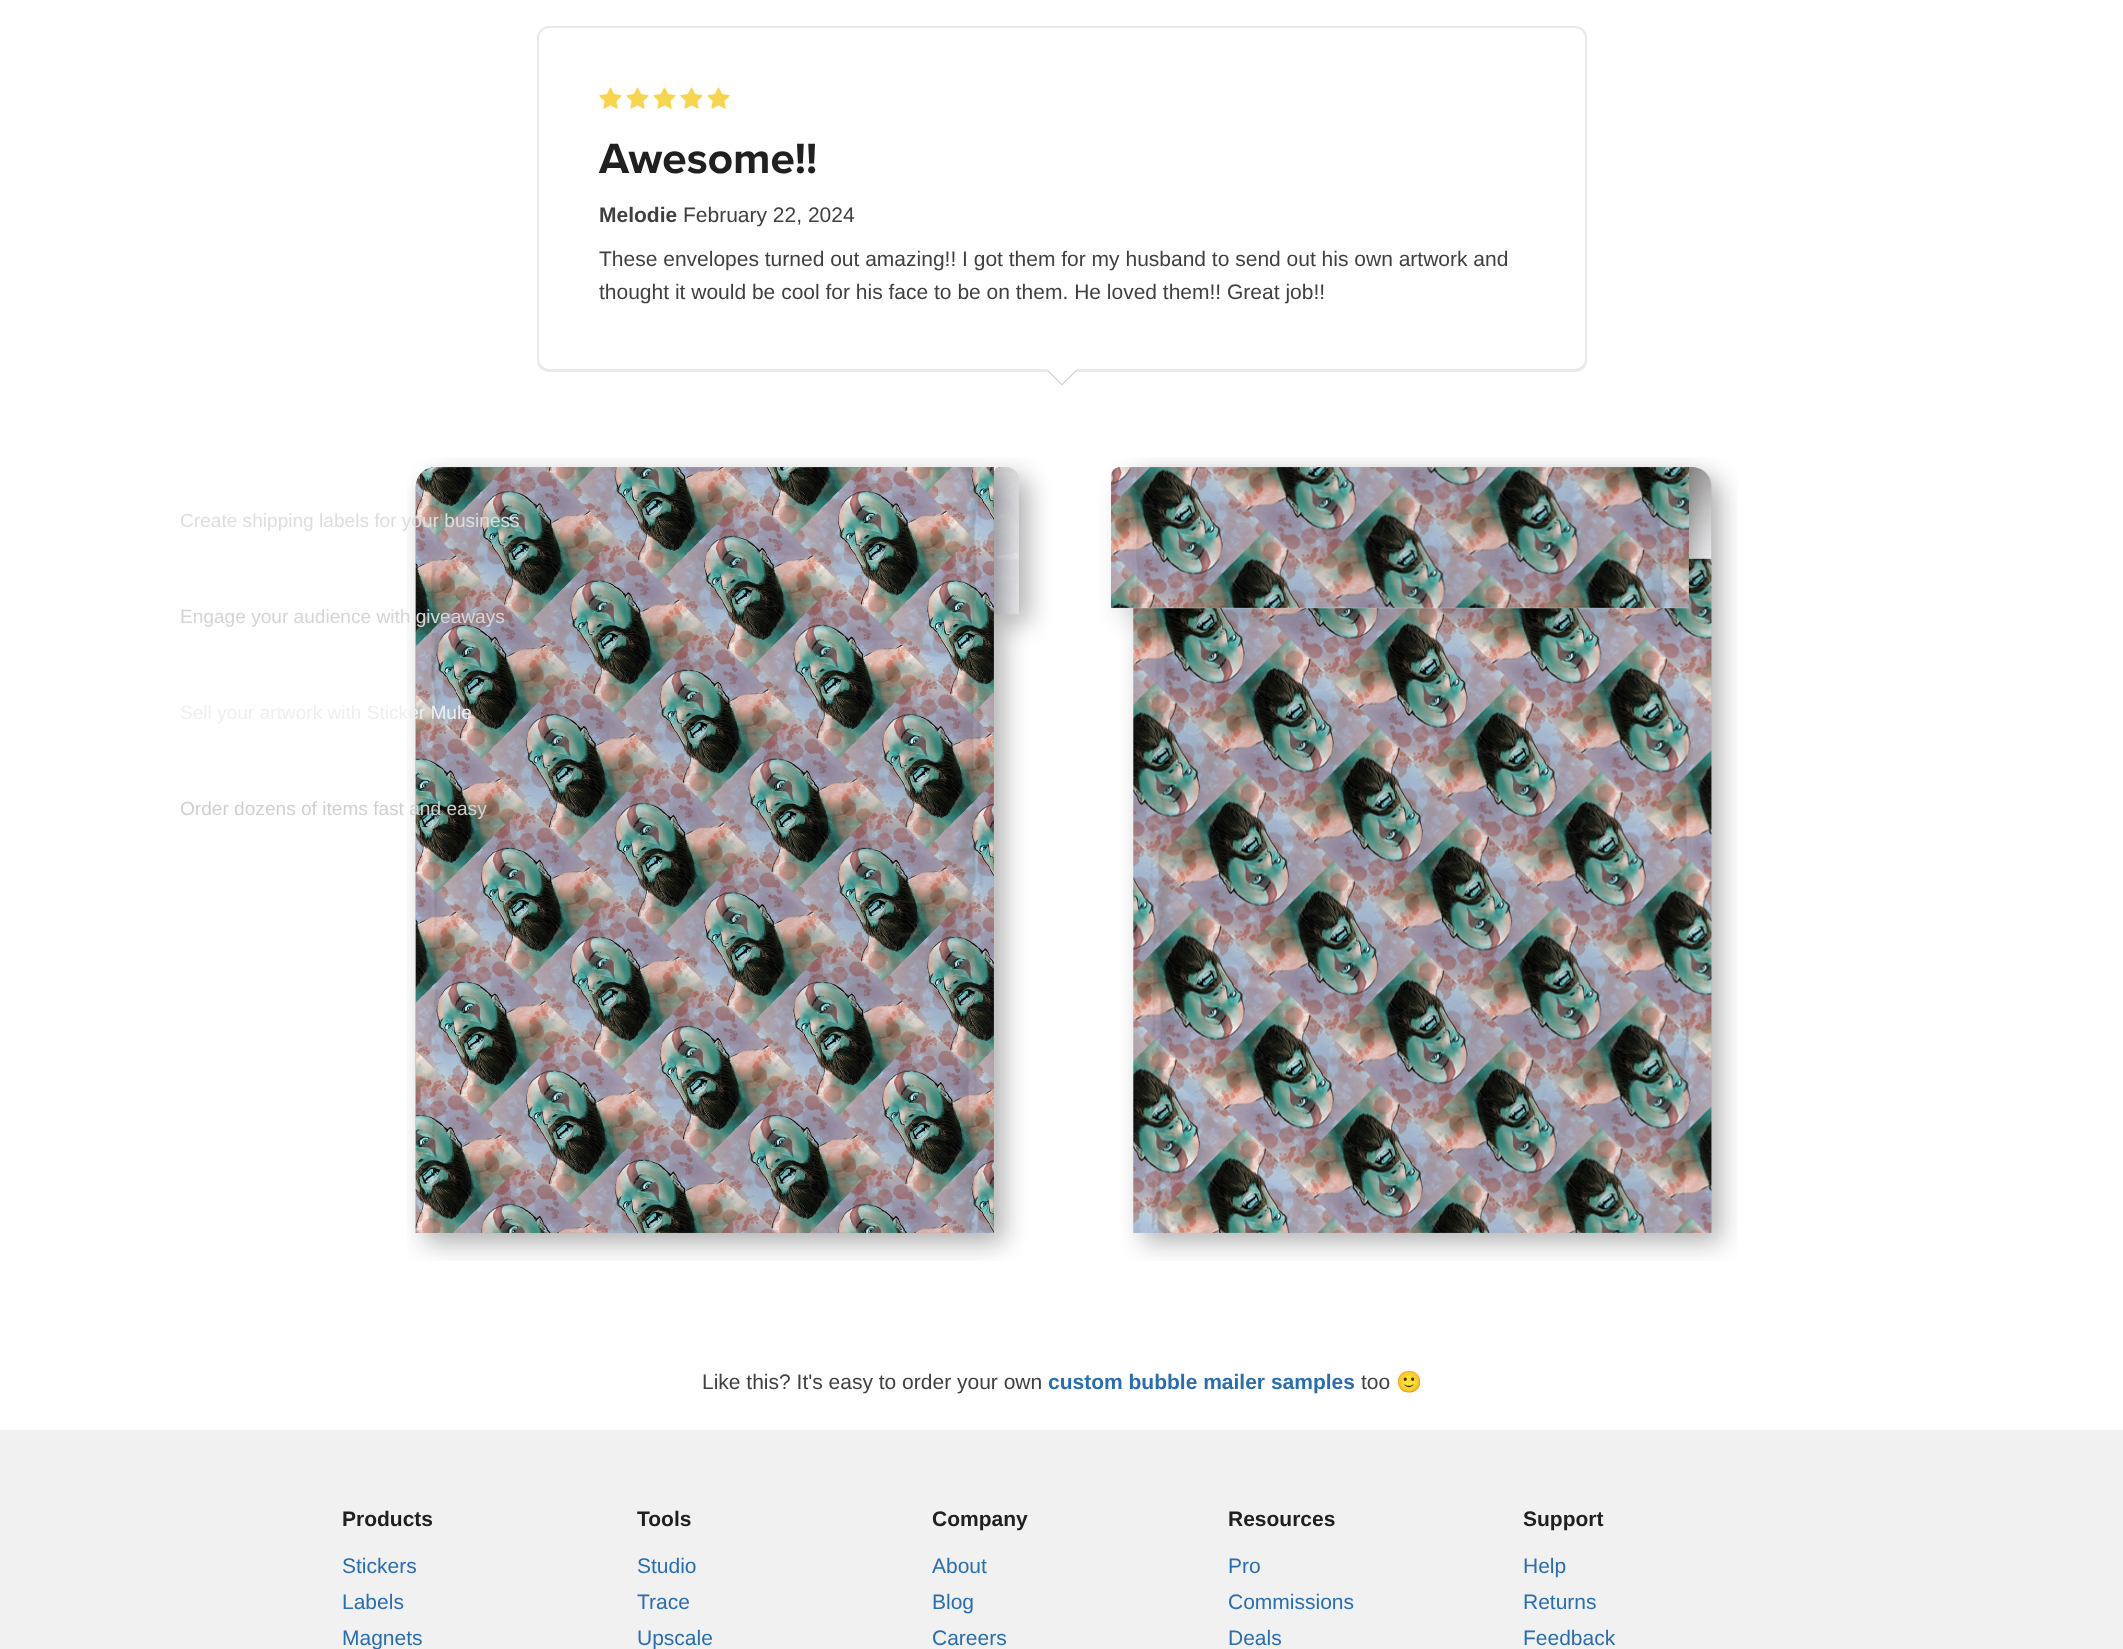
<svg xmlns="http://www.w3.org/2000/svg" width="2123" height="1649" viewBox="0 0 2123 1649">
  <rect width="100%" height="100%" fill="rgb(255,255,255)"/>
  <image x="407" y="457" width="1331" height="804" href="pic2.png"/>
  <text x="180" y="527" font-family="Liberation Sans" font-size="19.1" fill="rgb(221,223,222)">Create shipping labels for your business</text>
  <text x="180" y="623" font-family="Liberation Sans" font-size="19.1" fill="rgb(214,213,214)">Engage your audience with giveaways</text>
  <text x="180" y="719" font-family="Liberation Sans" font-size="19.1" fill="rgb(238,239,240)">Sell your artwork with Sticker Mule</text>
  <text x="180" y="815" font-family="Liberation Sans" font-size="19.1" fill="rgb(208,209,207)">Order dozens of items fast and easy</text>
  <path d="M537 358V360C537 367 542 372 549 372H1575C1582 372 1587 367 1587 360V358C1587 365 1582 370 1575 370H549C542 370 537 365 537 358Z" fill="rgb(233,233,233)"/>
  <rect x="538" y="27" width="1048" height="343" rx="11" fill="none" stroke="rgb(233,233,233)" stroke-width="2"/>
  <image x="599" y="87" width="23" height="22" href="pic1.png"/>
  <image x="626" y="87" width="23" height="22" href="pic1.png"/>
  <image x="653" y="87" width="23" height="22" href="pic1.png"/>
  <image x="680" y="87" width="23" height="22" href="pic1.png"/>
  <image x="707" y="87" width="23" height="22" href="pic1.png"/>
  <text x="599" y="173" font-family="Proxima Nova" font-size="44" font-weight="bold" fill="rgb(32,32,32)">Awesome!!</text>
  <text x="599" y="222" font-family="Liberation Sans" font-size="21" font-weight="bold" fill="rgb(64,64,64)">Melodie</text>
  <g font-family="Liberation Sans" font-size="21" fill="rgb(64,64,64)">
    <text x="683" y="222">February 22, 2024</text>
    <text>
      <tspan x="599" y="266">These envelopes turned out amazing!! I got them for my husband to send out his own artwork and</tspan>
      <tspan x="599" y="299">thought it would be cool for his face to be on them. He loved them!! Great job!!</tspan>
    </text>
  </g>
  <path d="M1047 370.5H1077L1062 385.5Z" fill="rgb(204,204,204)"/>
  <path d="M1047 369H1077L1062 384Z" fill="rgb(255,255,255)"/>
  <text x="702" y="1389" font-family="Liberation Sans" font-size="21" fill="rgb(64,64,64)">Like this? It's easy to order your own</text>
  <text x="1048" y="1389" font-family="Liberation Sans" font-size="21" font-weight="bold" fill="rgb(42,110,178)">custom bubble mailer samples</text>
  <text x="1361" y="1389" font-family="Liberation Sans" font-size="21" fill="rgb(64,64,64)">too</text>
  <text x="1396" y="1389" font-family="Noto Color Emoji" font-size="21" fill="rgb(64,64,64)">🙂</text>
  <rect x="0" y="1430" width="2123" height="219" fill="rgb(241,241,241)"/>
  <text x="342" y="1526" font-family="Liberation Sans" font-size="21" font-weight="bold" fill="rgb(32,32,32)">Products</text>
  <g font-family="Liberation Sans" font-size="21" fill="rgb(42,110,178)">
    <text>
      <tspan x="342" y="1573">Stickers</tspan>
      <tspan x="342" y="1609">Labels</tspan>
      <tspan x="342" y="1645">Magnets</tspan>
    </text>
  </g>
  <text x="637" y="1526" font-family="Liberation Sans" font-size="21" font-weight="bold" fill="rgb(32,32,32)">Tools</text>
  <g font-family="Liberation Sans" font-size="21" fill="rgb(42,110,178)">
    <text>
      <tspan x="637" y="1573">Studio</tspan>
      <tspan x="637" y="1609">Trace</tspan>
      <tspan x="637" y="1645">Upscale</tspan>
    </text>
  </g>
  <text x="932" y="1526" font-family="Liberation Sans" font-size="21" font-weight="bold" fill="rgb(32,32,32)">Company</text>
  <g font-family="Liberation Sans" font-size="21" fill="rgb(42,110,178)">
    <text>
      <tspan x="932" y="1573">About</tspan>
      <tspan x="932" y="1609">Blog</tspan>
      <tspan x="932" y="1645">Careers</tspan>
    </text>
  </g>
  <text x="1228" y="1526" font-family="Liberation Sans" font-size="21" font-weight="bold" fill="rgb(32,32,32)">Resources</text>
  <g font-family="Liberation Sans" font-size="21" fill="rgb(42,110,178)">
    <text>
      <tspan x="1228" y="1573">Pro</tspan>
      <tspan x="1228" y="1609">Commissions</tspan>
      <tspan x="1228" y="1645">Deals</tspan>
    </text>
  </g>
  <text x="1523" y="1526" font-family="Liberation Sans" font-size="21" font-weight="bold" fill="rgb(32,32,32)">Support</text>
  <g font-family="Liberation Sans" font-size="21" fill="rgb(42,110,178)">
    <text>
      <tspan x="1523" y="1573">Help</tspan>
      <tspan x="1523" y="1609">Returns</tspan>
      <tspan x="1523" y="1645">Feedback</tspan>
    </text>
  </g>
</svg>
